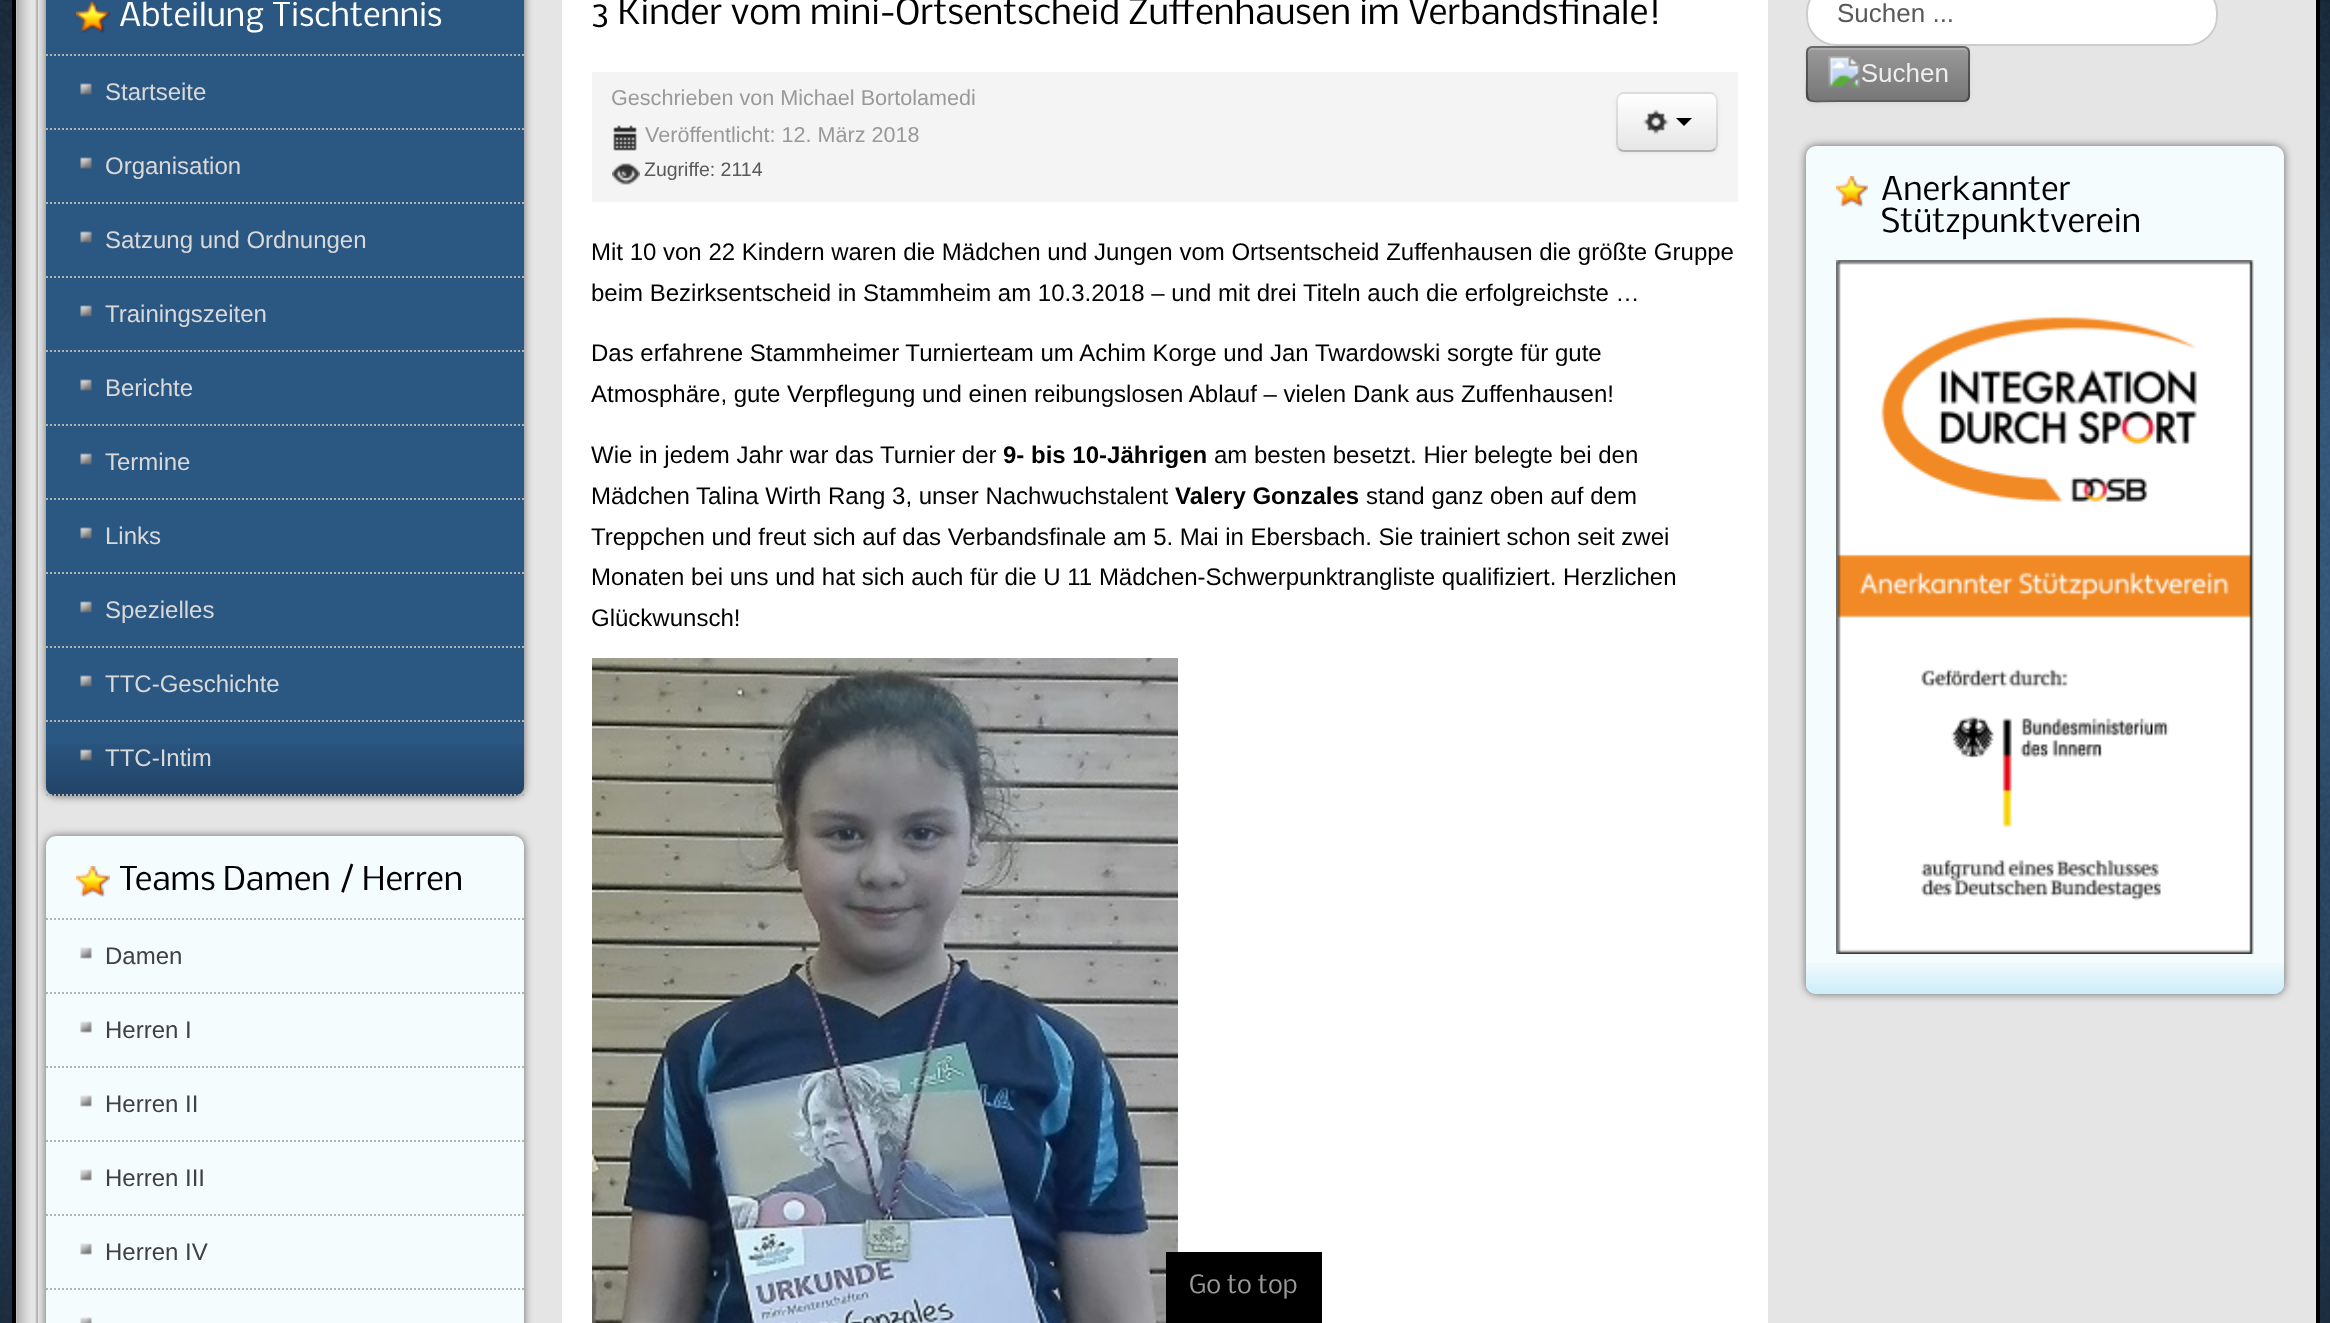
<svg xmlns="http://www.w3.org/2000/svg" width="2330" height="1323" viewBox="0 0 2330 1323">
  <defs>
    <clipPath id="clip1"><rect x="1616" y="92" width="102" height="60" rx="8"/></clipPath>
    <linearGradient id="g1" gradientUnits="userSpaceOnUse" x1="1667" y1="94" x2="1667" y2="150"><stop offset="0" stop-color="rgb(255,255,255)"/><stop offset="1" stop-color="rgb(230,230,230)"/></linearGradient>
    <clipPath id="clip2"><rect x="1806" y="46" width="164" height="56" rx="6"/></clipPath>
    <linearGradient id="g2" gradientUnits="userSpaceOnUse" x1="1888" y1="48" x2="1888" y2="100"><stop offset="0" stop-color="rgb(153,153,153)"/><stop offset="1" stop-color="rgb(119,119,119)"/></linearGradient>
  </defs>
  <rect width="100%" height="100%" fill="rgb(255,255,255)"/>
  <image x="0" y="0" width="2330" height="1323" href="pic1.png"/>
  <rect x="2316" y="0" width="4" height="1323" fill="rgb(0,0,0)"/>
  <rect x="12" y="0" width="4" height="1323" fill="rgb(0,0,0)"/>
  <rect x="38" y="0" width="2278" height="1323" fill="rgb(229,229,229)"/>
  <image x="16" y="0" width="22" height="1323" href="pic2.png"/>
  <rect x="46" y="-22" width="478" height="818" rx="10" fill="rgb(102,102,102)" filter="blur(4px)"/>
  <rect x="46" y="-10" width="478" height="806" rx="10" fill="rgb(43,87,131)"/>
  <image x="46" y="744" width="478" height="52" href="pic3.png"/>
  <image x="76" y="2" width="34" height="31" href="pic4.png"/>
  <text x="119" y="26" font-family="Nobile" font-size="31.25" fill="rgb(255,255,255)">Abteilung Tischtennis</text>
  <path d="M46 55H524" fill="none" stroke="rgb(179,179,179)" stroke-width="2" stroke-dasharray="2 2"/>
  <path d="M46 129H524" fill="none" stroke="rgb(179,179,179)" stroke-width="2" stroke-dasharray="2 2"/>
  <image x="80" y="83" width="12" height="12" href="pic5.png"/>
  <text x="105" y="100" font-family="Liberation Sans" font-size="24" fill="rgb(217,217,217)">Startseite</text>
  <path d="M46 203H524" fill="none" stroke="rgb(179,179,179)" stroke-width="2" stroke-dasharray="2 2"/>
  <image x="80" y="157" width="12" height="12" href="pic5.png"/>
  <text x="105" y="174" font-family="Liberation Sans" font-size="24" fill="rgb(217,217,217)">Organisation</text>
  <path d="M46 277H524" fill="none" stroke="rgb(179,179,179)" stroke-width="2" stroke-dasharray="2 2"/>
  <image x="80" y="231" width="12" height="12" href="pic5.png"/>
  <text x="105" y="248" font-family="Liberation Sans" font-size="24" fill="rgb(217,217,217)">Satzung und Ordnungen</text>
  <path d="M46 351H524" fill="none" stroke="rgb(179,179,179)" stroke-width="2" stroke-dasharray="2 2"/>
  <image x="80" y="305" width="12" height="12" href="pic5.png"/>
  <text x="105" y="322" font-family="Liberation Sans" font-size="24" fill="rgb(217,217,217)">Trainingszeiten</text>
  <path d="M46 425H524" fill="none" stroke="rgb(179,179,179)" stroke-width="2" stroke-dasharray="2 2"/>
  <image x="80" y="379" width="12" height="12" href="pic5.png"/>
  <text x="105" y="396" font-family="Liberation Sans" font-size="24" fill="rgb(217,217,217)">Berichte</text>
  <path d="M46 499H524" fill="none" stroke="rgb(179,179,179)" stroke-width="2" stroke-dasharray="2 2"/>
  <image x="80" y="453" width="12" height="12" href="pic5.png"/>
  <text x="105" y="470" font-family="Liberation Sans" font-size="24" fill="rgb(217,217,217)">Termine</text>
  <path d="M46 573H524" fill="none" stroke="rgb(179,179,179)" stroke-width="2" stroke-dasharray="2 2"/>
  <image x="80" y="527" width="12" height="12" href="pic5.png"/>
  <text x="105" y="544" font-family="Liberation Sans" font-size="24" fill="rgb(217,217,217)">Links</text>
  <path d="M46 647H524" fill="none" stroke="rgb(179,179,179)" stroke-width="2" stroke-dasharray="2 2"/>
  <image x="80" y="601" width="12" height="12" href="pic5.png"/>
  <text x="105" y="618" font-family="Liberation Sans" font-size="24" fill="rgb(217,217,217)">Spezielles</text>
  <path d="M46 721H524" fill="none" stroke="rgb(179,179,179)" stroke-width="2" stroke-dasharray="2 2"/>
  <image x="80" y="675" width="12" height="12" href="pic5.png"/>
  <text x="105" y="692" font-family="Liberation Sans" font-size="24" fill="rgb(217,217,217)">TTC-Geschichte</text>
  <path d="M46 795H524" fill="none" stroke="rgb(179,179,179)" stroke-width="2" stroke-dasharray="2 2"/>
  <image x="80" y="749" width="12" height="12" href="pic6.png"/>
  <text x="105" y="766" font-family="Liberation Sans" font-size="24" fill="rgb(217,217,217)">TTC-Intim</text>
  <rect x="46" y="836" width="478" height="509" rx="10" fill="rgb(102,102,102)" filter="blur(4px)"/>
  <rect x="46" y="836" width="478" height="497" rx="10" fill="rgb(245,252,254)"/>
  <image x="76" y="866" width="34" height="31" href="pic7.png"/>
  <text x="119" y="890" font-family="Nobile" font-size="31.25" fill="rgb(0,0,0)">Teams Damen / Herren</text>
  <path d="M46 919H524" fill="none" stroke="rgb(179,179,179)" stroke-width="2" stroke-dasharray="2 2"/>
  <path d="M46 993H524" fill="none" stroke="rgb(179,179,179)" stroke-width="2" stroke-dasharray="2 2"/>
  <image x="80" y="947" width="12" height="12" href="pic8.png"/>
  <text x="105" y="964" font-family="Liberation Sans" font-size="24" fill="rgb(64,64,64)">Damen</text>
  <path d="M46 1067H524" fill="none" stroke="rgb(179,179,179)" stroke-width="2" stroke-dasharray="2 2"/>
  <image x="80" y="1021" width="12" height="12" href="pic8.png"/>
  <text x="105" y="1038" font-family="Liberation Sans" font-size="24" fill="rgb(64,64,64)">Herren I</text>
  <path d="M46 1141H524" fill="none" stroke="rgb(179,179,179)" stroke-width="2" stroke-dasharray="2 2"/>
  <image x="80" y="1095" width="12" height="12" href="pic8.png"/>
  <text x="105" y="1112" font-family="Liberation Sans" font-size="24" fill="rgb(64,64,64)">Herren II</text>
  <path d="M46 1215H524" fill="none" stroke="rgb(179,179,179)" stroke-width="2" stroke-dasharray="2 2"/>
  <image x="80" y="1169" width="12" height="12" href="pic8.png"/>
  <text x="105" y="1186" font-family="Liberation Sans" font-size="24" fill="rgb(64,64,64)">Herren III</text>
  <path d="M46 1289H524" fill="none" stroke="rgb(179,179,179)" stroke-width="2" stroke-dasharray="2 2"/>
  <image x="80" y="1243" width="12" height="12" href="pic8.png"/>
  <text x="105" y="1260" font-family="Liberation Sans" font-size="24" fill="rgb(64,64,64)">Herren IV</text>
  <image x="80" y="1317" width="12" height="6" href="pic9.png"/>
  <rect x="562" y="0" width="1206" height="1323" fill="rgb(255,255,255)"/>
  <text x="591" y="24" word-spacing="-0.25" font-family="Nobile" font-size="33.6" fill="rgb(0,0,0)">3 Kinder vom mini-Ortsentscheid Zuffenhausen im Verbandsfinale!</text>
  <rect x="592" y="72" width="1146" height="130" fill="rgb(244,244,244)"/>
  <text x="611" y="105" font-family="Liberation Sans" font-size="21.6" fill="rgb(153,153,153)">Geschrieben von Michael Bortolamedi</text>
  <image x="613" y="125" width="24" height="26" href="pic10.png"/>
  <text x="645" y="142" font-family="Liberation Sans" font-size="21.6" fill="rgb(153,153,153)">Veröffentlicht: 12. März 2018</text>
  <image x="612" y="163" width="28" height="22" href="pic11.png"/>
  <text x="644" y="176" font-family="Liberation Sans" font-size="19.5" fill="rgb(89,89,89)">Zugriffe: 2114</text>
  <rect x="1616" y="94" width="102" height="60" rx="8" fill="rgba(0,0,0,0.05)" filter="blur(2px)"/>
  <rect x="1616" y="92" width="102" height="60" rx="8" fill="rgb(245,245,245)"/>
  <g clip-path="url(#clip1)">
    <rect x="1616" y="94" width="102" height="56" fill="url(#g1)"/>
  </g>
  <path d="M1715 149C1713.5 150.5 1712 151 1710 151H1624C1622 151 1620.5 150.5 1619 149" fill="none" stroke="rgb(179,179,179)" stroke-width="2"/>
  <path d="M1619 149C1617.5 147.5 1617 146 1617 144V100C1617 98 1617.5 96.5 1619 95C1620.5 93.5 1622 93 1624 93H1710C1712 93 1713.5 93.5 1715 95C1716.5 96.5 1717 98 1717 100V144C1717 146 1716.5 147.5 1715 149" fill="none" stroke="rgba(0,0,0,0.1)" stroke-width="2"/>
  <image x="1643" y="109" width="26" height="26" href="pic12.png"/>
  <path d="M1676 118H1692L1684 126Z" fill="rgb(0,0,0)"/>
  <g font-family="Liberation Sans" font-size="24" fill="rgb(0,0,0)">
    <text>
      <tspan x="591" y="260">Mit 10 von 22 Kindern waren die Mädchen und Jungen vom Ortsentscheid Zuffenhausen die größte Gruppe</tspan>
      <tspan x="591" y="301">beim Bezirksentscheid in Stammheim am 10.3.2018 – und mit drei Titeln auch die erfolgreichste …</tspan>
    </text>
    <text>
      <tspan x="591" y="361">Das erfahrene Stammheimer Turnierteam um Achim Korge und Jan Twardowski sorgte für gute</tspan>
      <tspan x="591" y="402">Atmosphäre, gute Verpflegung und einen reibungslosen Ablauf – vielen Dank aus Zuffenhausen!</tspan>
    </text>
    <text x="591" y="463">Wie in jedem Jahr war das Turnier der</text>
  </g>
  <text x="1003" y="463" font-family="Liberation Sans" font-size="24" font-weight="bold" fill="rgb(0,0,0)">9- bis 10-Jährigen</text>
  <g font-family="Liberation Sans" font-size="24" fill="rgb(0,0,0)">
    <text x="1214" y="463">am besten besetzt. Hier belegte bei den</text>
    <text x="591" y="504">Mädchen Talina Wirth Rang 3, unser Nachwuchstalent</text>
  </g>
  <text x="1175" y="504" font-family="Liberation Sans" font-size="24" font-weight="bold" fill="rgb(0,0,0)">Valery Gonzales</text>
  <g font-family="Liberation Sans" font-size="24" fill="rgb(0,0,0)">
    <text x="1366" y="504">stand ganz oben auf dem</text>
    <text>
      <tspan x="591" y="545">Treppchen und freut sich auf das Verbandsfinale am 5. Mai in Ebersbach. Sie trainiert schon seit zwei</tspan>
      <tspan x="591" y="585">Monaten bei uns und hat sich auch für die U 11 Mädchen-Schwerpunktrangliste qualifiziert. Herzlichen</tspan>
      <tspan x="591" y="626">Glückwunsch!</tspan>
    </text>
  </g>
  <image x="592" y="658" width="586" height="665" href="pic13.png"/>
  <rect x="1806" y="-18" width="412" height="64" rx="30" fill="rgb(255,255,255)"/>
  <path d="M1836-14H2188C2203-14 2216-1 2216 14V12C2216-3 2203-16 2188-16H1836C1821-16 1808-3 1808 12V14C1808-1 1821-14 1836-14Z" fill="rgb(236,236,236)"/>
  <rect x="1807" y="-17" width="410" height="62" rx="29" fill="none" stroke="rgb(204,204,204)" stroke-width="2"/>
  <text x="1837" y="22" font-family="Liberation Sans" font-size="26" fill="rgb(89,89,89)">Suchen ...</text>
  <rect x="1806" y="48" width="164" height="56" rx="6" fill="rgba(0,0,0,0.05)" filter="blur(2px)"/>
  <rect x="1806" y="46" width="164" height="56" rx="6" fill="rgb(153,153,153)"/>
  <g clip-path="url(#clip2)">
    <rect x="1806" y="48" width="164" height="52" fill="url(#g2)"/>
  </g>
  <path d="M1812 50H1964C1966 50 1968 52 1968 54V52C1968 50 1966 48 1964 48H1812C1810 48 1808 50 1808 52V54C1808 52 1810 50 1812 50Z" fill="rgb(173,173,173)"/>
  <path d="M1808.5 48.5C1809.5 47.5 1810.5 47 1812 47H1964C1965.5 47 1966.5 47.5 1967.5 48.5" fill="none" stroke="rgba(0,0,0,0.3)" stroke-width="2"/>
  <path d="M1967.5 48.5C1970 51 1969 56.5 1969 59.5V88.5C1969 92.5 1970.5 101 1964 101H1837.5C1802 101 1807 107 1807 74V59.5C1807 56.5 1806 51 1808.5 48.5" fill="none" stroke="rgba(0,0,0,0.4)" stroke-width="2"/>
  <image x="1828" y="56" width="120" height="32" href="pic14.png"/>
  <rect x="1806" y="146" width="478" height="848" rx="10" fill="rgb(102,102,102)" filter="blur(4px)"/>
  <rect x="1806" y="146" width="478" height="848" rx="10" fill="rgb(245,252,254)"/>
  <image x="1806" y="963" width="478" height="31" href="pic15.png"/>
  <image x="1836" y="176" width="32" height="31" href="pic16.png"/>
  <g font-family="Nobile" font-size="31.25" fill="rgb(0,0,0)">
    <text>
      <tspan x="1881" y="200">Anerkannter</tspan>
      <tspan x="1881" y="232">Stützpunktverein</tspan>
    </text>
  </g>
  <image x="1836" y="260" width="418" height="694" href="pic17.png"/>
  <rect x="1166" y="1252" width="156" height="71" fill="rgb(0,0,0)"/>
  <text x="1189" y="1293" font-family="Nobile" font-size="24" fill="rgb(153,153,153)">Go to top</text>
</svg>
